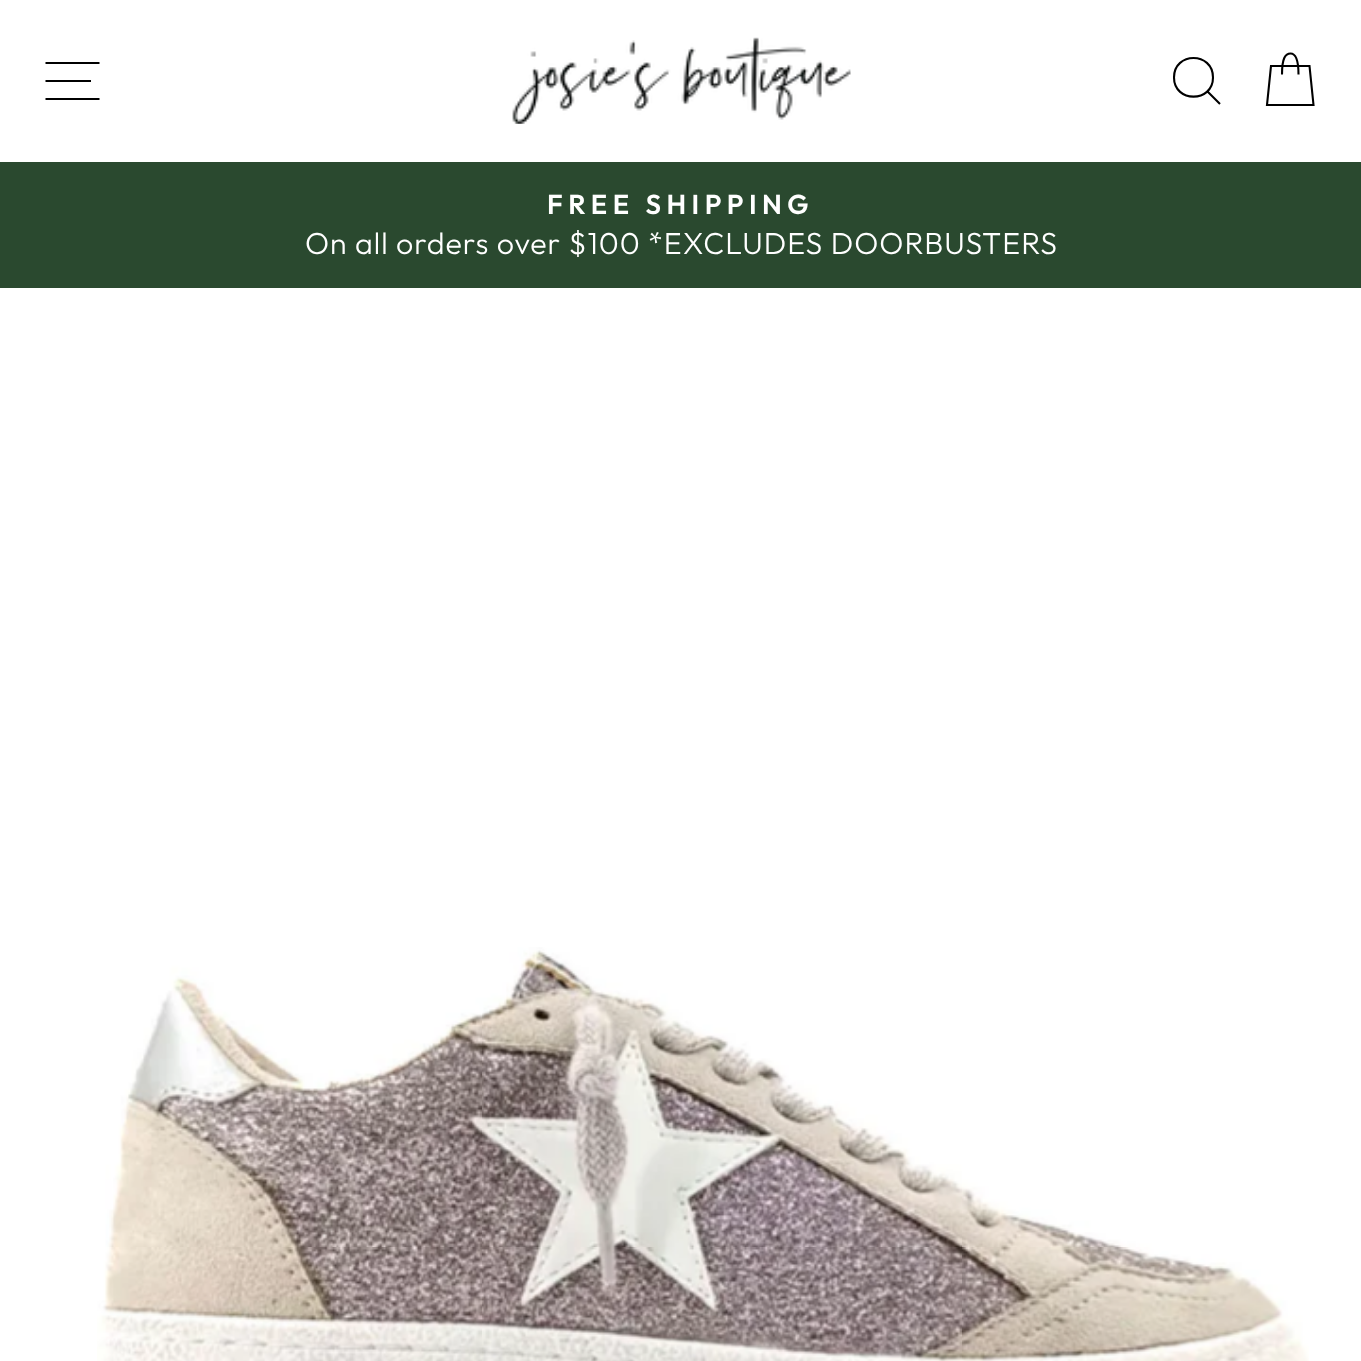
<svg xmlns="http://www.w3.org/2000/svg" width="1361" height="1361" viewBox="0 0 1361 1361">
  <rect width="100%" height="100%" fill="rgb(255,255,255)"/>
  <path d="M45.5 63H99.5M45.5 81H91M45.5 99H99.5" fill="none" stroke="rgb(0,0,0)" stroke-width="2.1"/>
  <image x="512" y="37" width="339" height="87" href="pic1.png"/>
  <path d="M1213 77.5C1213 103 1174 103 1174 77.5C1174 51.5 1213 51.5 1213 77.5ZM1220 104L1207.5 91.5" fill="none" stroke="rgb(0,0,0)" stroke-width="2.1"/>
  <path d="M1282 74.5C1282 58 1285.5 53.5 1290.5 53.5C1295 53.5 1298.5 58 1298.5 74.5M1271 66H1309.5L1313.5 105H1267Z" fill="none" stroke="rgb(0,0,0)" stroke-width="2.1"/>
  <rect x="0" y="162" width="1361" height="126" fill="rgb(42,73,47)"/>
  <text x="547" y="214" font-family="Outfit" font-size="27.25" font-weight="600" letter-spacing="5.5" fill="rgb(255,255,255)">FREE SHIPPING</text>
  <text x="305" y="254" font-family="Outfit" font-size="30.4" font-weight="300" letter-spacing="0.95" fill="rgb(255,255,255)">On all orders over $100 *EXCLUDES DOORBUSTERS</text>
  <image x="97" y="947" width="1212" height="414" href="pic2.png"/>
</svg>
